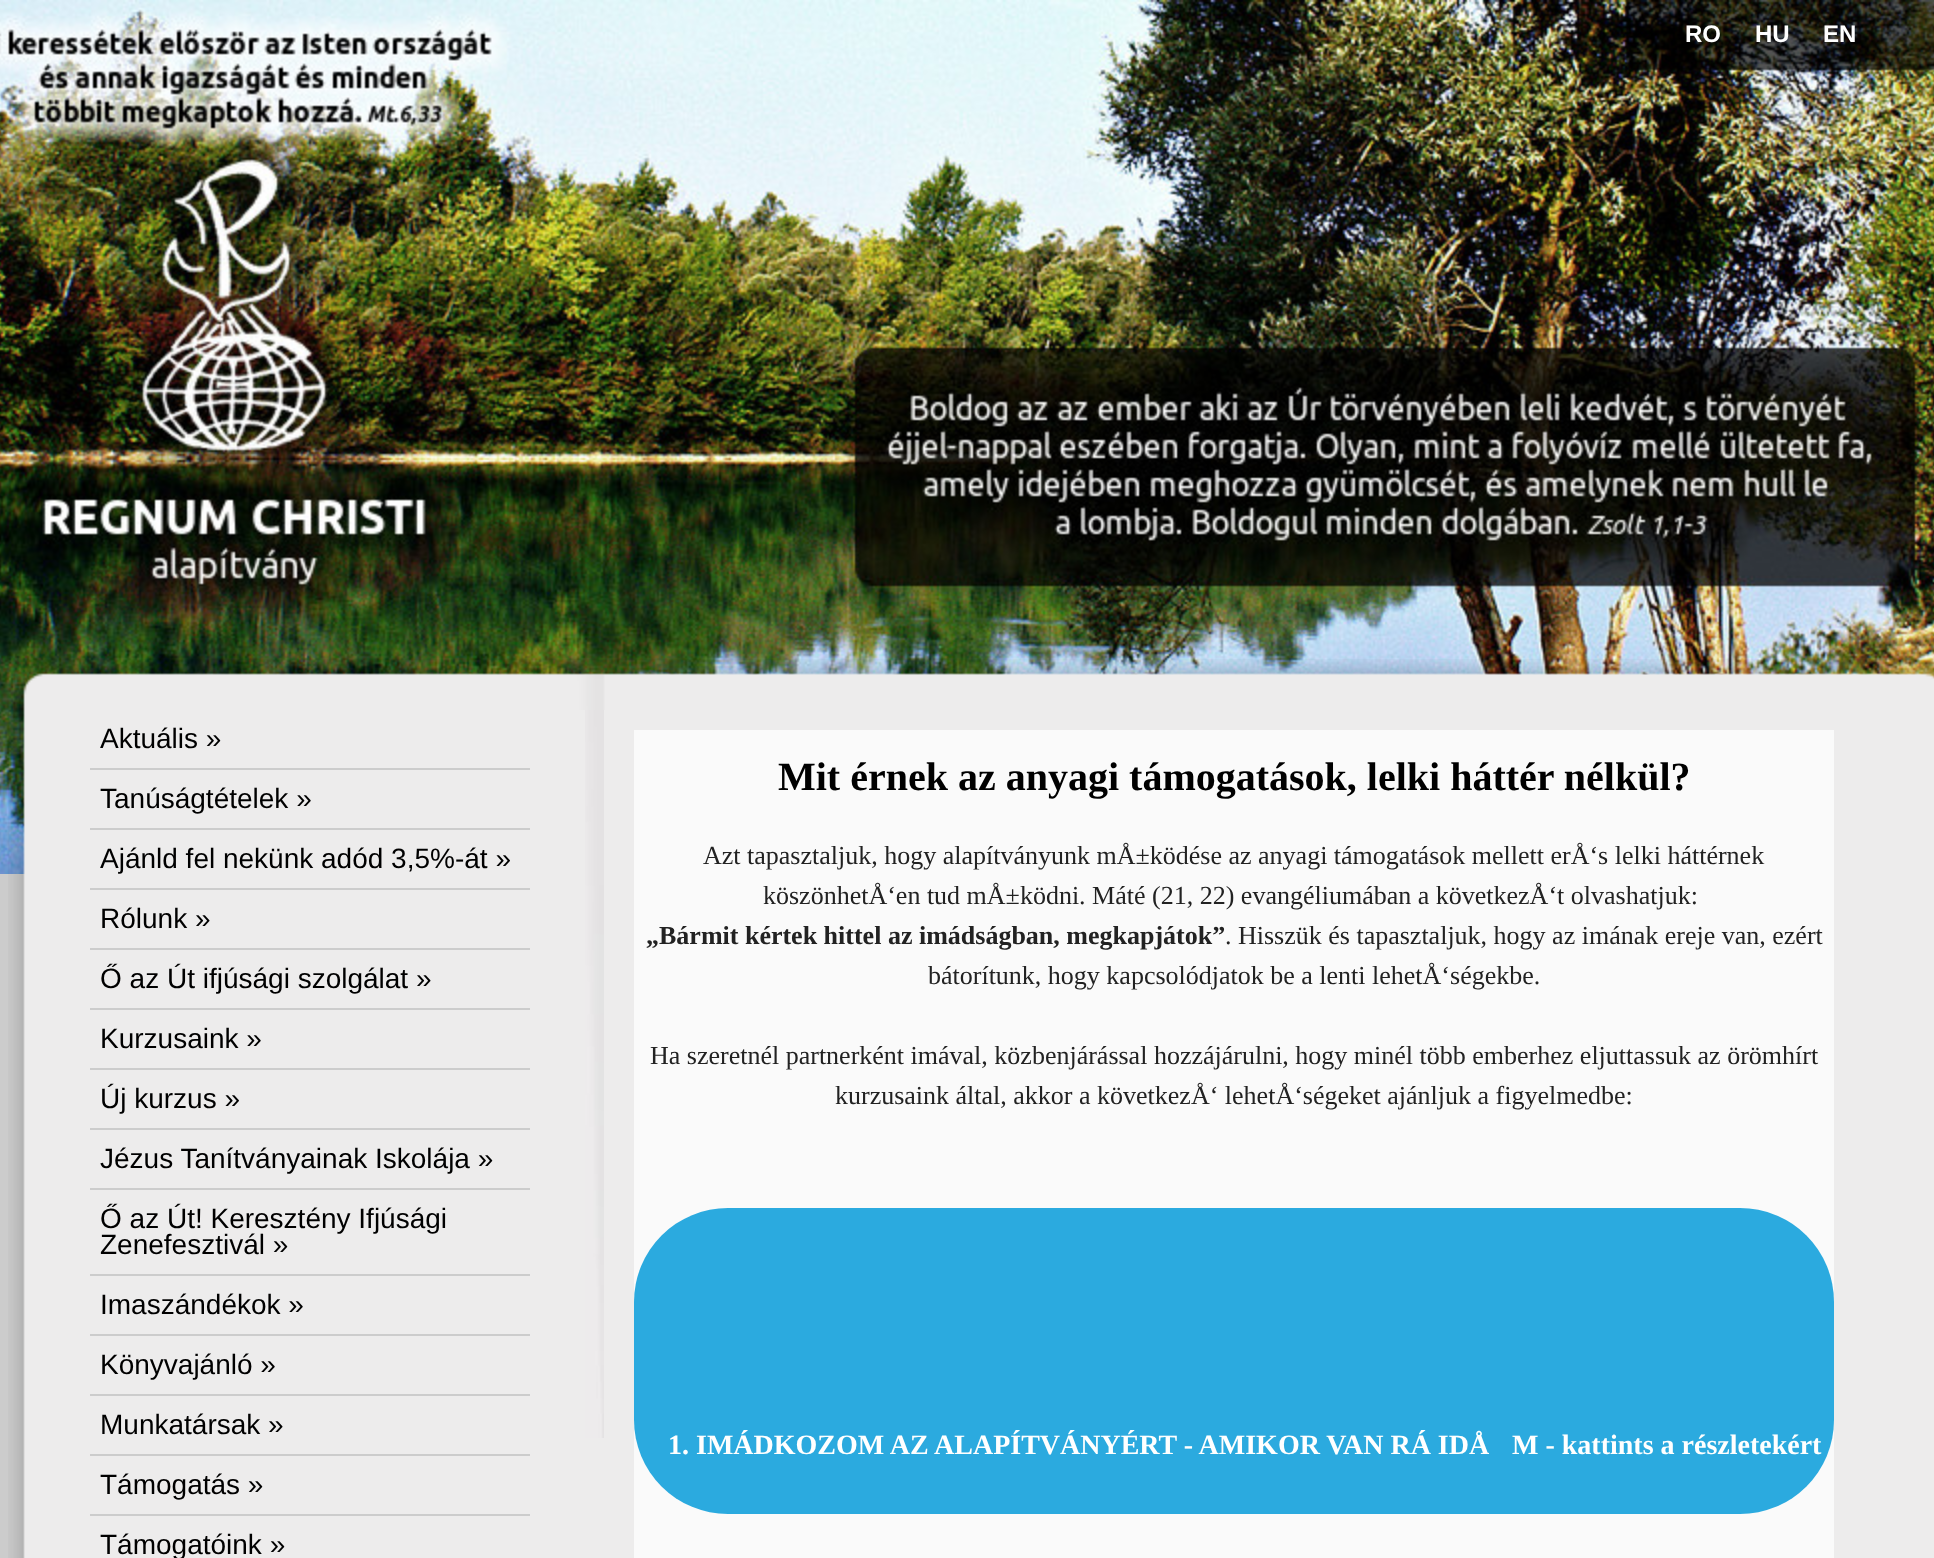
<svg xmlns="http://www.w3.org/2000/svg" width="1934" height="1558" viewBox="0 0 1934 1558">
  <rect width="100%" height="100%" fill="rgb(204,204,204)"/>
  <image x="0" y="0" width="1934" height="874" href="pic1.png"/>
  <image x="1625" y="0" width="309" height="71" href="pic2.png"/>
  <g font-family="Liberation Sans" font-size="24" font-weight="bold" fill="rgb(255,255,255)">
    <text x="1685" y="42">RO</text>
    <text x="1755" y="42">HU</text>
    <text x="1823" y="42">EN</text>
  </g>
  <image x="14" y="659" width="1920" height="51" href="pic3.png"/>
  <image x="8" y="710" width="1926" height="848" href="pic4.png"/>
  <rect x="90" y="768" width="440" height="2" fill="rgb(204,204,204)"/>
  <text x="100" y="748" font-family="Liberation Sans" font-size="28" fill="rgb(0,0,0)">Aktuális »</text>
  <rect x="90" y="828" width="440" height="2" fill="rgb(204,204,204)"/>
  <text x="100" y="808" font-family="Liberation Sans" font-size="28" fill="rgb(0,0,0)">Tanúságtételek »</text>
  <rect x="90" y="888" width="440" height="2" fill="rgb(204,204,204)"/>
  <text x="100" y="868" font-family="Liberation Sans" font-size="28" fill="rgb(0,0,0)">Ajánld fel nekünk adód 3,5%-át »</text>
  <rect x="90" y="948" width="440" height="2" fill="rgb(204,204,204)"/>
  <text x="100" y="928" font-family="Liberation Sans" font-size="28" fill="rgb(0,0,0)">Rólunk »</text>
  <rect x="90" y="1008" width="440" height="2" fill="rgb(204,204,204)"/>
  <text x="100" y="988" font-family="Liberation Sans" font-size="28" fill="rgb(0,0,0)">Ő az Út ifjúsági szolgálat »</text>
  <rect x="90" y="1068" width="440" height="2" fill="rgb(204,204,204)"/>
  <text x="100" y="1048" font-family="Liberation Sans" font-size="28" fill="rgb(0,0,0)">Kurzusaink »</text>
  <rect x="90" y="1128" width="440" height="2" fill="rgb(204,204,204)"/>
  <text x="100" y="1108" font-family="Liberation Sans" font-size="28" fill="rgb(0,0,0)">Új kurzus »</text>
  <rect x="90" y="1188" width="440" height="2" fill="rgb(204,204,204)"/>
  <text x="100" y="1168" font-family="Liberation Sans" font-size="28" fill="rgb(0,0,0)">Jézus Tanítványainak Iskolája »</text>
  <rect x="90" y="1274" width="440" height="2" fill="rgb(204,204,204)"/>
  <g font-family="Liberation Sans" font-size="28" fill="rgb(0,0,0)">
    <text>
      <tspan x="100" y="1228">Ő az Út! Keresztény Ifjúsági</tspan>
      <tspan x="100" y="1254">Zenefesztivál »</tspan>
    </text>
  </g>
  <rect x="90" y="1334" width="440" height="2" fill="rgb(204,204,204)"/>
  <text x="100" y="1314" font-family="Liberation Sans" font-size="28" fill="rgb(0,0,0)">Imaszándékok »</text>
  <rect x="90" y="1394" width="440" height="2" fill="rgb(204,204,204)"/>
  <text x="100" y="1374" font-family="Liberation Sans" font-size="28" fill="rgb(0,0,0)">Könyvajánló »</text>
  <rect x="90" y="1454" width="440" height="2" fill="rgb(204,204,204)"/>
  <text x="100" y="1434" font-family="Liberation Sans" font-size="28" fill="rgb(0,0,0)">Munkatársak »</text>
  <rect x="90" y="1514" width="440" height="2" fill="rgb(204,204,204)"/>
  <g font-family="Liberation Sans" font-size="28" fill="rgb(0,0,0)">
    <text x="100" y="1494">Támogatás »</text>
    <text x="100" y="1554">Támogatóink »</text>
  </g>
  <image x="585" y="710" width="19" height="728" href="pic5.png"/>
  <rect x="634" y="730" width="1200" height="828" fill="rgb(250,250,250)"/>
  <text x="778" y="790" font-family="Liberation Serif" font-size="40" font-weight="bold" fill="rgb(0,0,0)">Mit érnek az anyagi támogatások, lelki háttér nélkül?</text>
  <g font-family="Liberation Serif" font-size="26" fill="rgb(34,34,34)">
    <text x="703" y="864">Azt tapasztaljuk, hogy alapítványunk mÅ±ködése az anyagi támogatások mellett erÅ‘s lelki háttérnek</text>
    <text x="763" y="904">köszönhetÅ‘en tud mÅ±ködni. Máté (21, 22) evangéliumában a következÅ‘t olvashatjuk:</text>
  </g>
  <text x="646" y="944" font-family="Liberation Serif" font-size="26" font-weight="bold" fill="rgb(34,34,34)">„Bármit kértek hittel az imádságban, megkapjátok”</text>
  <g font-family="Liberation Serif" font-size="26" fill="rgb(34,34,34)">
    <text x="1225" y="944">. Hisszük és tapasztaljuk, hogy az imának ereje van, ezért</text>
    <text x="928" y="984">bátorítunk, hogy kapcsolódjatok be a lenti lehetÅ‘ségekbe.</text>
    <text x="650" y="1064">Ha szeretnél partnerként imával, közbenjárással hozzájárulni, hogy minél több emberhez eljuttassuk az örömhírt</text>
    <text x="835" y="1104">kurzusaink által, akkor a következÅ‘ lehetÅ‘ségeket ajánljuk a figyelmedbe:</text>
  </g>
  <rect x="634" y="1208" width="1200" height="306" rx="94" fill="rgb(43,170,223)"/>
  <g font-family="Liberation Serif" font-size="28" font-weight="bold" fill="rgb(255,255,255)">
    <text x="668" y="1454">1. IMÁDKOZOM AZ ALAPÍTVÁNYÉRT - AMIKOR VAN RÁ IDÅ</text>
    <text x="1512" y="1454">M - kattints a részletekért</text>
  </g>
</svg>
